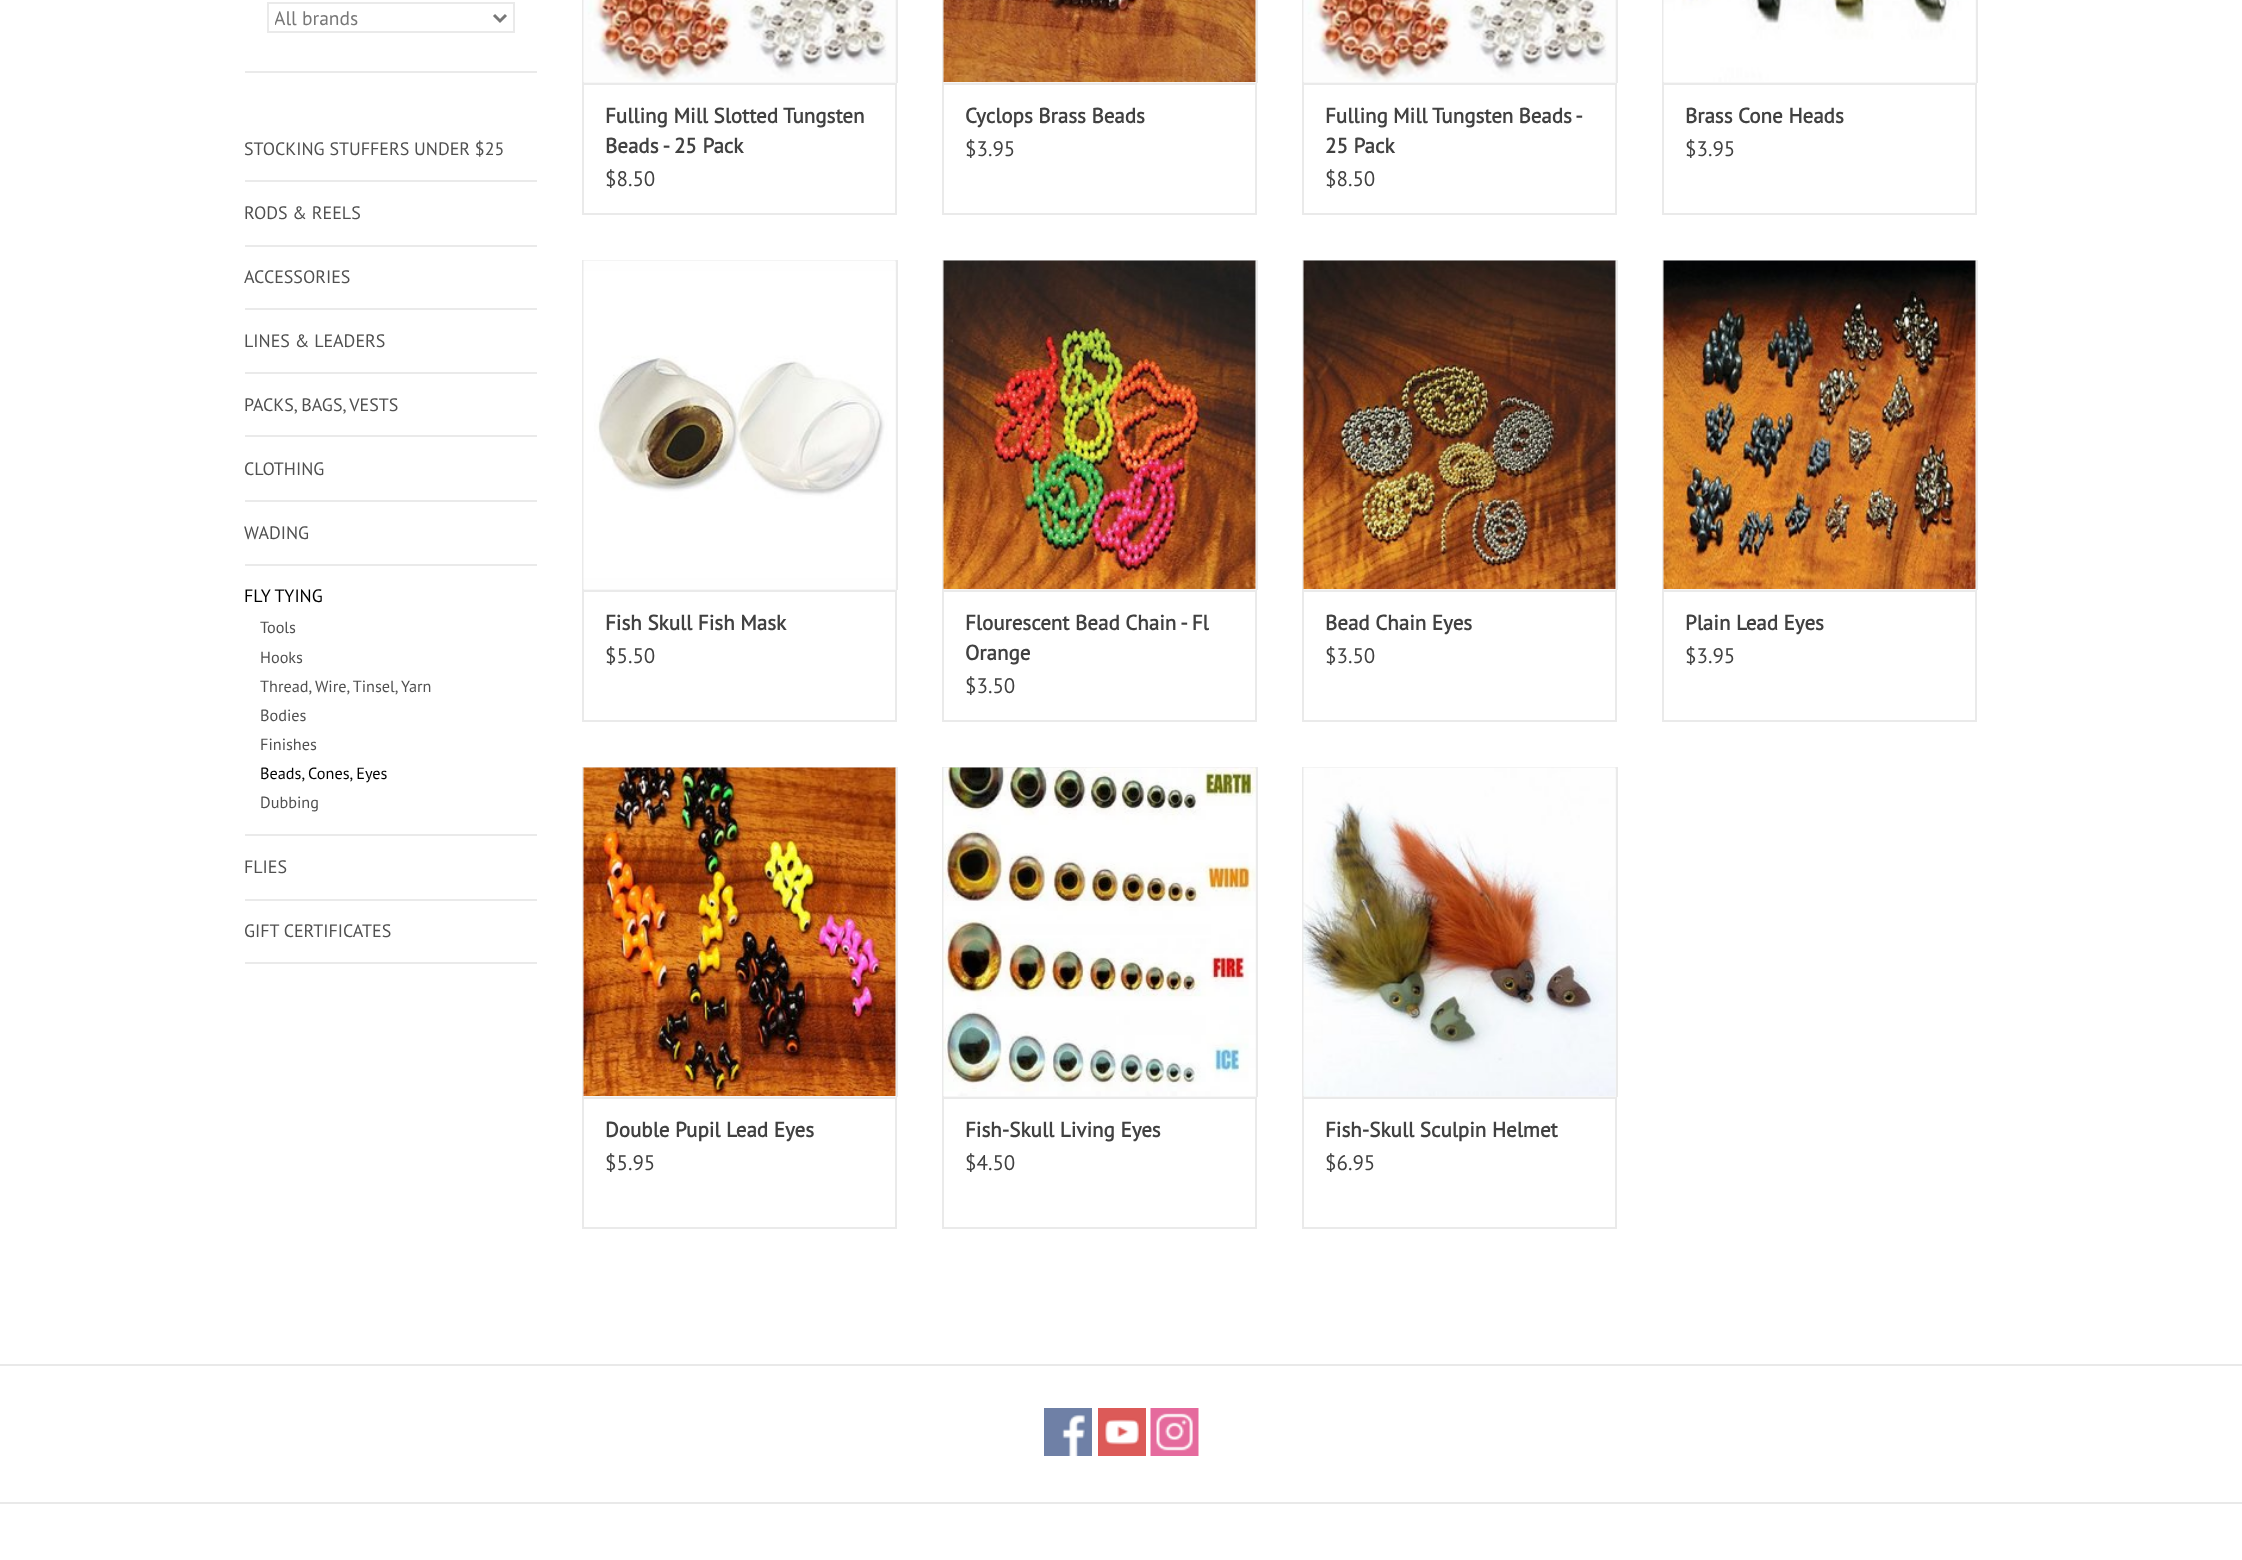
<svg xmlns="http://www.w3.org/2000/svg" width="2242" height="1560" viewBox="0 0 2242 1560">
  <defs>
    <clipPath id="clip1"><rect x="275" y="3" width="214" height="29"/></clipPath>
  </defs>
  <rect width="100%" height="100%" fill="rgb(255,255,255)"/>
  <rect x="245" y="71" width="292" height="2" fill="rgb(234,234,234)"/>
  <rect x="268" y="3" width="246" height="29" fill="none" stroke="rgb(234,234,234)" stroke-width="2"/>
  <path d="M494 15L500 21L506 15" fill="none" stroke="rgb(119,119,119)" stroke-width="3"/>
  <g clip-path="url(#clip1)">
    <text x="274" y="25" font-family="PT Sans" font-size="19.5" fill="rgb(119,119,119)">All brands</text>
  </g>
  <rect x="245" y="180" width="292" height="2" fill="rgb(234,234,234)"/>
  <text x="244" y="155" font-family="PT Sans" font-size="18" fill="rgb(80,80,80)">STOCKING STUFFERS UNDER $25</text>
  <rect x="245" y="245" width="292" height="2" fill="rgb(234,234,234)"/>
  <text x="244" y="219" font-family="PT Sans" font-size="18" fill="rgb(80,80,80)">RODS &amp; REELS</text>
  <rect x="245" y="308" width="292" height="2" fill="rgb(234,234,234)"/>
  <text x="244" y="283" font-family="PT Sans" font-size="18" fill="rgb(80,80,80)">ACCESSORIES</text>
  <rect x="245" y="372" width="292" height="2" fill="rgb(234,234,234)"/>
  <text x="244" y="347" font-family="PT Sans" font-size="18" fill="rgb(80,80,80)">LINES &amp; LEADERS</text>
  <rect x="245" y="435" width="292" height="2" fill="rgb(234,234,234)"/>
  <text x="244" y="411" font-family="PT Sans" font-size="18" fill="rgb(80,80,80)">PACKS, BAGS, VESTS</text>
  <rect x="245" y="500" width="292" height="2" fill="rgb(234,234,234)"/>
  <text x="244" y="475" font-family="PT Sans" font-size="18" fill="rgb(80,80,80)">CLOTHING</text>
  <rect x="245" y="564" width="292" height="2" fill="rgb(234,234,234)"/>
  <text x="244" y="539" font-family="PT Sans" font-size="18" fill="rgb(80,80,80)">WADING</text>
  <rect x="245" y="834" width="292" height="2" fill="rgb(234,234,234)"/>
  <text x="244" y="602" font-family="PT Sans" font-size="18" fill="rgb(0,0,0)">FLY TYING</text>
  <g font-family="PT Sans" font-size="16.25" fill="rgb(80,80,80)">
    <text>
      <tspan x="260" y="633">Tools</tspan>
      <tspan x="260" y="663">Hooks</tspan>
      <tspan x="260" y="692">Thread, Wire, Tinsel, Yarn</tspan>
      <tspan x="260" y="721">Bodies</tspan>
      <tspan x="260" y="750">Finishes</tspan>
    </text>
  </g>
  <text x="260" y="779" font-family="PT Sans" font-size="16.25" fill="rgb(0,0,0)">Beads, Cones, Eyes</text>
  <text x="260" y="808" font-family="PT Sans" font-size="16.25" fill="rgb(80,80,80)">Dubbing</text>
  <rect x="245" y="899" width="292" height="2" fill="rgb(234,234,234)"/>
  <text x="244" y="873" font-family="PT Sans" font-size="18" fill="rgb(80,80,80)">FLIES</text>
  <rect x="245" y="962" width="292" height="2" fill="rgb(234,234,234)"/>
  <text x="244" y="937" font-family="PT Sans" font-size="18" fill="rgb(80,80,80)">GIFT CERTIFICATES</text>
  <rect x="584" y="0" width="312" height="83" fill="rgb(247,247,247)"/>
  <rect x="896" y="0" width="2" height="83" fill="rgb(234,234,234)"/>
  <rect x="582" y="0" width="2" height="83" fill="rgb(234,234,234)"/>
  <image x="583" y="0" width="312" height="82" href="pic1.png"/>
  <rect x="583" y="84" width="313" height="130" fill="none" stroke="rgb(234,234,234)" stroke-width="2"/>
  <g font-family="PT Sans" font-size="21" font-weight="bold" fill="rgb(65,65,65)">
    <text>
      <tspan x="605" y="123">Fulling Mill Slotted Tungsten</tspan>
      <tspan x="605" y="153">Beads - 25 Pack</tspan>
    </text>
  </g>
  <text x="605" y="186" font-family="PT Sans" font-size="21" fill="rgb(65,65,65)">$8.50</text>
  <rect x="944" y="0" width="312" height="83" fill="rgb(247,247,247)"/>
  <rect x="1256" y="0" width="2" height="83" fill="rgb(234,234,234)"/>
  <rect x="942" y="0" width="2" height="83" fill="rgb(234,234,234)"/>
  <image x="943" y="0" width="313" height="82" href="pic2.png"/>
  <rect x="943" y="84" width="313" height="130" fill="none" stroke="rgb(234,234,234)" stroke-width="2"/>
  <text x="965" y="123" font-family="PT Sans" font-size="21" font-weight="bold" fill="rgb(65,65,65)">Cyclops Brass Beads</text>
  <text x="965" y="156" font-family="PT Sans" font-size="21" fill="rgb(65,65,65)">$3.95</text>
  <rect x="1304" y="0" width="312" height="83" fill="rgb(247,247,247)"/>
  <rect x="1616" y="0" width="2" height="83" fill="rgb(234,234,234)"/>
  <rect x="1302" y="0" width="2" height="83" fill="rgb(234,234,234)"/>
  <image x="1303" y="0" width="312" height="82" href="pic3.png"/>
  <rect x="1303" y="84" width="313" height="130" fill="none" stroke="rgb(234,234,234)" stroke-width="2"/>
  <g font-family="PT Sans" font-size="21" font-weight="bold" fill="rgb(65,65,65)">
    <text>
      <tspan x="1325" y="123" word-spacing="-0.5">Fulling Mill Tungsten Beads -</tspan>
      <tspan x="1325" y="153">25 Pack</tspan>
    </text>
  </g>
  <text x="1325" y="186" font-family="PT Sans" font-size="21" fill="rgb(65,65,65)">$8.50</text>
  <rect x="1664" y="0" width="312" height="83" fill="rgb(247,247,247)"/>
  <rect x="1976" y="0" width="2" height="83" fill="rgb(234,234,234)"/>
  <rect x="1662" y="0" width="2" height="83" fill="rgb(234,234,234)"/>
  <image x="1663" y="0" width="313" height="82" href="pic4.png"/>
  <rect x="1663" y="84" width="313" height="130" fill="none" stroke="rgb(234,234,234)" stroke-width="2"/>
  <text x="1685" y="123" font-family="PT Sans" font-size="21" font-weight="bold" fill="rgb(65,65,65)">Brass Cone Heads</text>
  <text x="1685" y="156" font-family="PT Sans" font-size="21" fill="rgb(65,65,65)">$3.95</text>
  <rect x="584" y="262" width="312" height="328" fill="rgb(247,247,247)"/>
  <rect x="582" y="260" width="315" height="2" fill="rgb(234,234,234)"/>
  <rect x="896" y="260" width="2" height="330" fill="rgb(234,234,234)"/>
  <rect x="582" y="260" width="2" height="330" fill="rgb(234,234,234)"/>
  <image x="583" y="260" width="313" height="329" href="pic5.png"/>
  <rect x="583" y="591" width="313" height="130" fill="none" stroke="rgb(234,234,234)" stroke-width="2"/>
  <text x="605" y="630" font-family="PT Sans" font-size="21" font-weight="bold" fill="rgb(65,65,65)">Fish Skull Fish Mask</text>
  <text x="605" y="663" font-family="PT Sans" font-size="21" fill="rgb(65,65,65)">$5.50</text>
  <rect x="944" y="262" width="312" height="328" fill="rgb(247,247,247)"/>
  <rect x="942" y="260" width="315" height="2" fill="rgb(234,234,234)"/>
  <rect x="1256" y="260" width="2" height="330" fill="rgb(234,234,234)"/>
  <rect x="942" y="260" width="2" height="330" fill="rgb(234,234,234)"/>
  <image x="943" y="260" width="313" height="329" href="pic6.png"/>
  <rect x="943" y="591" width="313" height="130" fill="none" stroke="rgb(234,234,234)" stroke-width="2"/>
  <g font-family="PT Sans" font-size="21" font-weight="bold" fill="rgb(65,65,65)">
    <text>
      <tspan x="965" y="630">Flourescent Bead Chain - Fl</tspan>
      <tspan x="965" y="660">Orange</tspan>
    </text>
  </g>
  <text x="965" y="693" font-family="PT Sans" font-size="21" fill="rgb(65,65,65)">$3.50</text>
  <rect x="1304" y="262" width="312" height="328" fill="rgb(247,247,247)"/>
  <rect x="1302" y="260" width="315" height="2" fill="rgb(234,234,234)"/>
  <rect x="1616" y="260" width="2" height="330" fill="rgb(234,234,234)"/>
  <rect x="1302" y="260" width="2" height="330" fill="rgb(234,234,234)"/>
  <image x="1303" y="260" width="313" height="329" href="pic7.png"/>
  <rect x="1303" y="591" width="313" height="130" fill="none" stroke="rgb(234,234,234)" stroke-width="2"/>
  <text x="1325" y="630" font-family="PT Sans" font-size="21" font-weight="bold" fill="rgb(65,65,65)">Bead Chain Eyes</text>
  <text x="1325" y="663" font-family="PT Sans" font-size="21" fill="rgb(65,65,65)">$3.50</text>
  <rect x="1664" y="262" width="312" height="328" fill="rgb(247,247,247)"/>
  <rect x="1662" y="260" width="315" height="2" fill="rgb(234,234,234)"/>
  <rect x="1976" y="260" width="2" height="330" fill="rgb(234,234,234)"/>
  <rect x="1662" y="260" width="2" height="330" fill="rgb(234,234,234)"/>
  <image x="1663" y="260" width="313" height="329" href="pic8.png"/>
  <rect x="1663" y="591" width="313" height="130" fill="none" stroke="rgb(234,234,234)" stroke-width="2"/>
  <text x="1685" y="630" font-family="PT Sans" font-size="21" font-weight="bold" fill="rgb(65,65,65)">Plain Lead Eyes</text>
  <text x="1685" y="663" font-family="PT Sans" font-size="21" fill="rgb(65,65,65)">$3.95</text>
  <rect x="584" y="769" width="312" height="328" fill="rgb(247,247,247)"/>
  <rect x="582" y="767" width="315" height="2" fill="rgb(234,234,234)"/>
  <rect x="896" y="767" width="2" height="330" fill="rgb(234,234,234)"/>
  <rect x="582" y="767" width="2" height="330" fill="rgb(234,234,234)"/>
  <image x="583" y="767" width="313" height="329" href="pic9.png"/>
  <rect x="583" y="1098" width="313" height="130" fill="none" stroke="rgb(234,234,234)" stroke-width="2"/>
  <text x="605" y="1137" font-family="PT Sans" font-size="21" font-weight="bold" fill="rgb(65,65,65)">Double Pupil Lead Eyes</text>
  <text x="605" y="1170" font-family="PT Sans" font-size="21" fill="rgb(65,65,65)">$5.95</text>
  <rect x="944" y="769" width="312" height="328" fill="rgb(247,247,247)"/>
  <rect x="942" y="767" width="315" height="2" fill="rgb(234,234,234)"/>
  <rect x="1256" y="767" width="2" height="330" fill="rgb(234,234,234)"/>
  <rect x="942" y="767" width="2" height="330" fill="rgb(234,234,234)"/>
  <image x="943" y="767" width="313" height="329" href="pic10.png"/>
  <rect x="943" y="1098" width="313" height="130" fill="none" stroke="rgb(234,234,234)" stroke-width="2"/>
  <text x="965" y="1137" font-family="PT Sans" font-size="21" font-weight="bold" fill="rgb(65,65,65)">Fish-Skull Living Eyes</text>
  <text x="965" y="1170" font-family="PT Sans" font-size="21" fill="rgb(65,65,65)">$4.50</text>
  <rect x="1304" y="769" width="312" height="328" fill="rgb(247,247,247)"/>
  <rect x="1302" y="767" width="315" height="2" fill="rgb(234,234,234)"/>
  <rect x="1616" y="767" width="2" height="330" fill="rgb(234,234,234)"/>
  <rect x="1302" y="767" width="2" height="330" fill="rgb(234,234,234)"/>
  <image x="1303" y="767" width="313" height="329" href="pic11.png"/>
  <rect x="1303" y="1098" width="313" height="130" fill="none" stroke="rgb(234,234,234)" stroke-width="2"/>
  <text x="1325" y="1137" font-family="PT Sans" font-size="21" font-weight="bold" fill="rgb(65,65,65)">Fish-Skull Sculpin Helmet</text>
  <text x="1325" y="1170" font-family="PT Sans" font-size="21" fill="rgb(65,65,65)">$6.95</text>
  <rect x="0" y="1364" width="2242" height="2" fill="rgb(233,233,233)"/>
  <image x="1044" y="1408" width="48" height="48" href="pic12.png"/>
  <image x="1098" y="1408" width="48" height="48" href="pic13.png"/>
  <image x="1150" y="1408" width="49" height="48" href="pic14.png"/>
  <rect x="0" y="1502" width="2242" height="2" fill="rgb(233,233,233)"/>
</svg>
